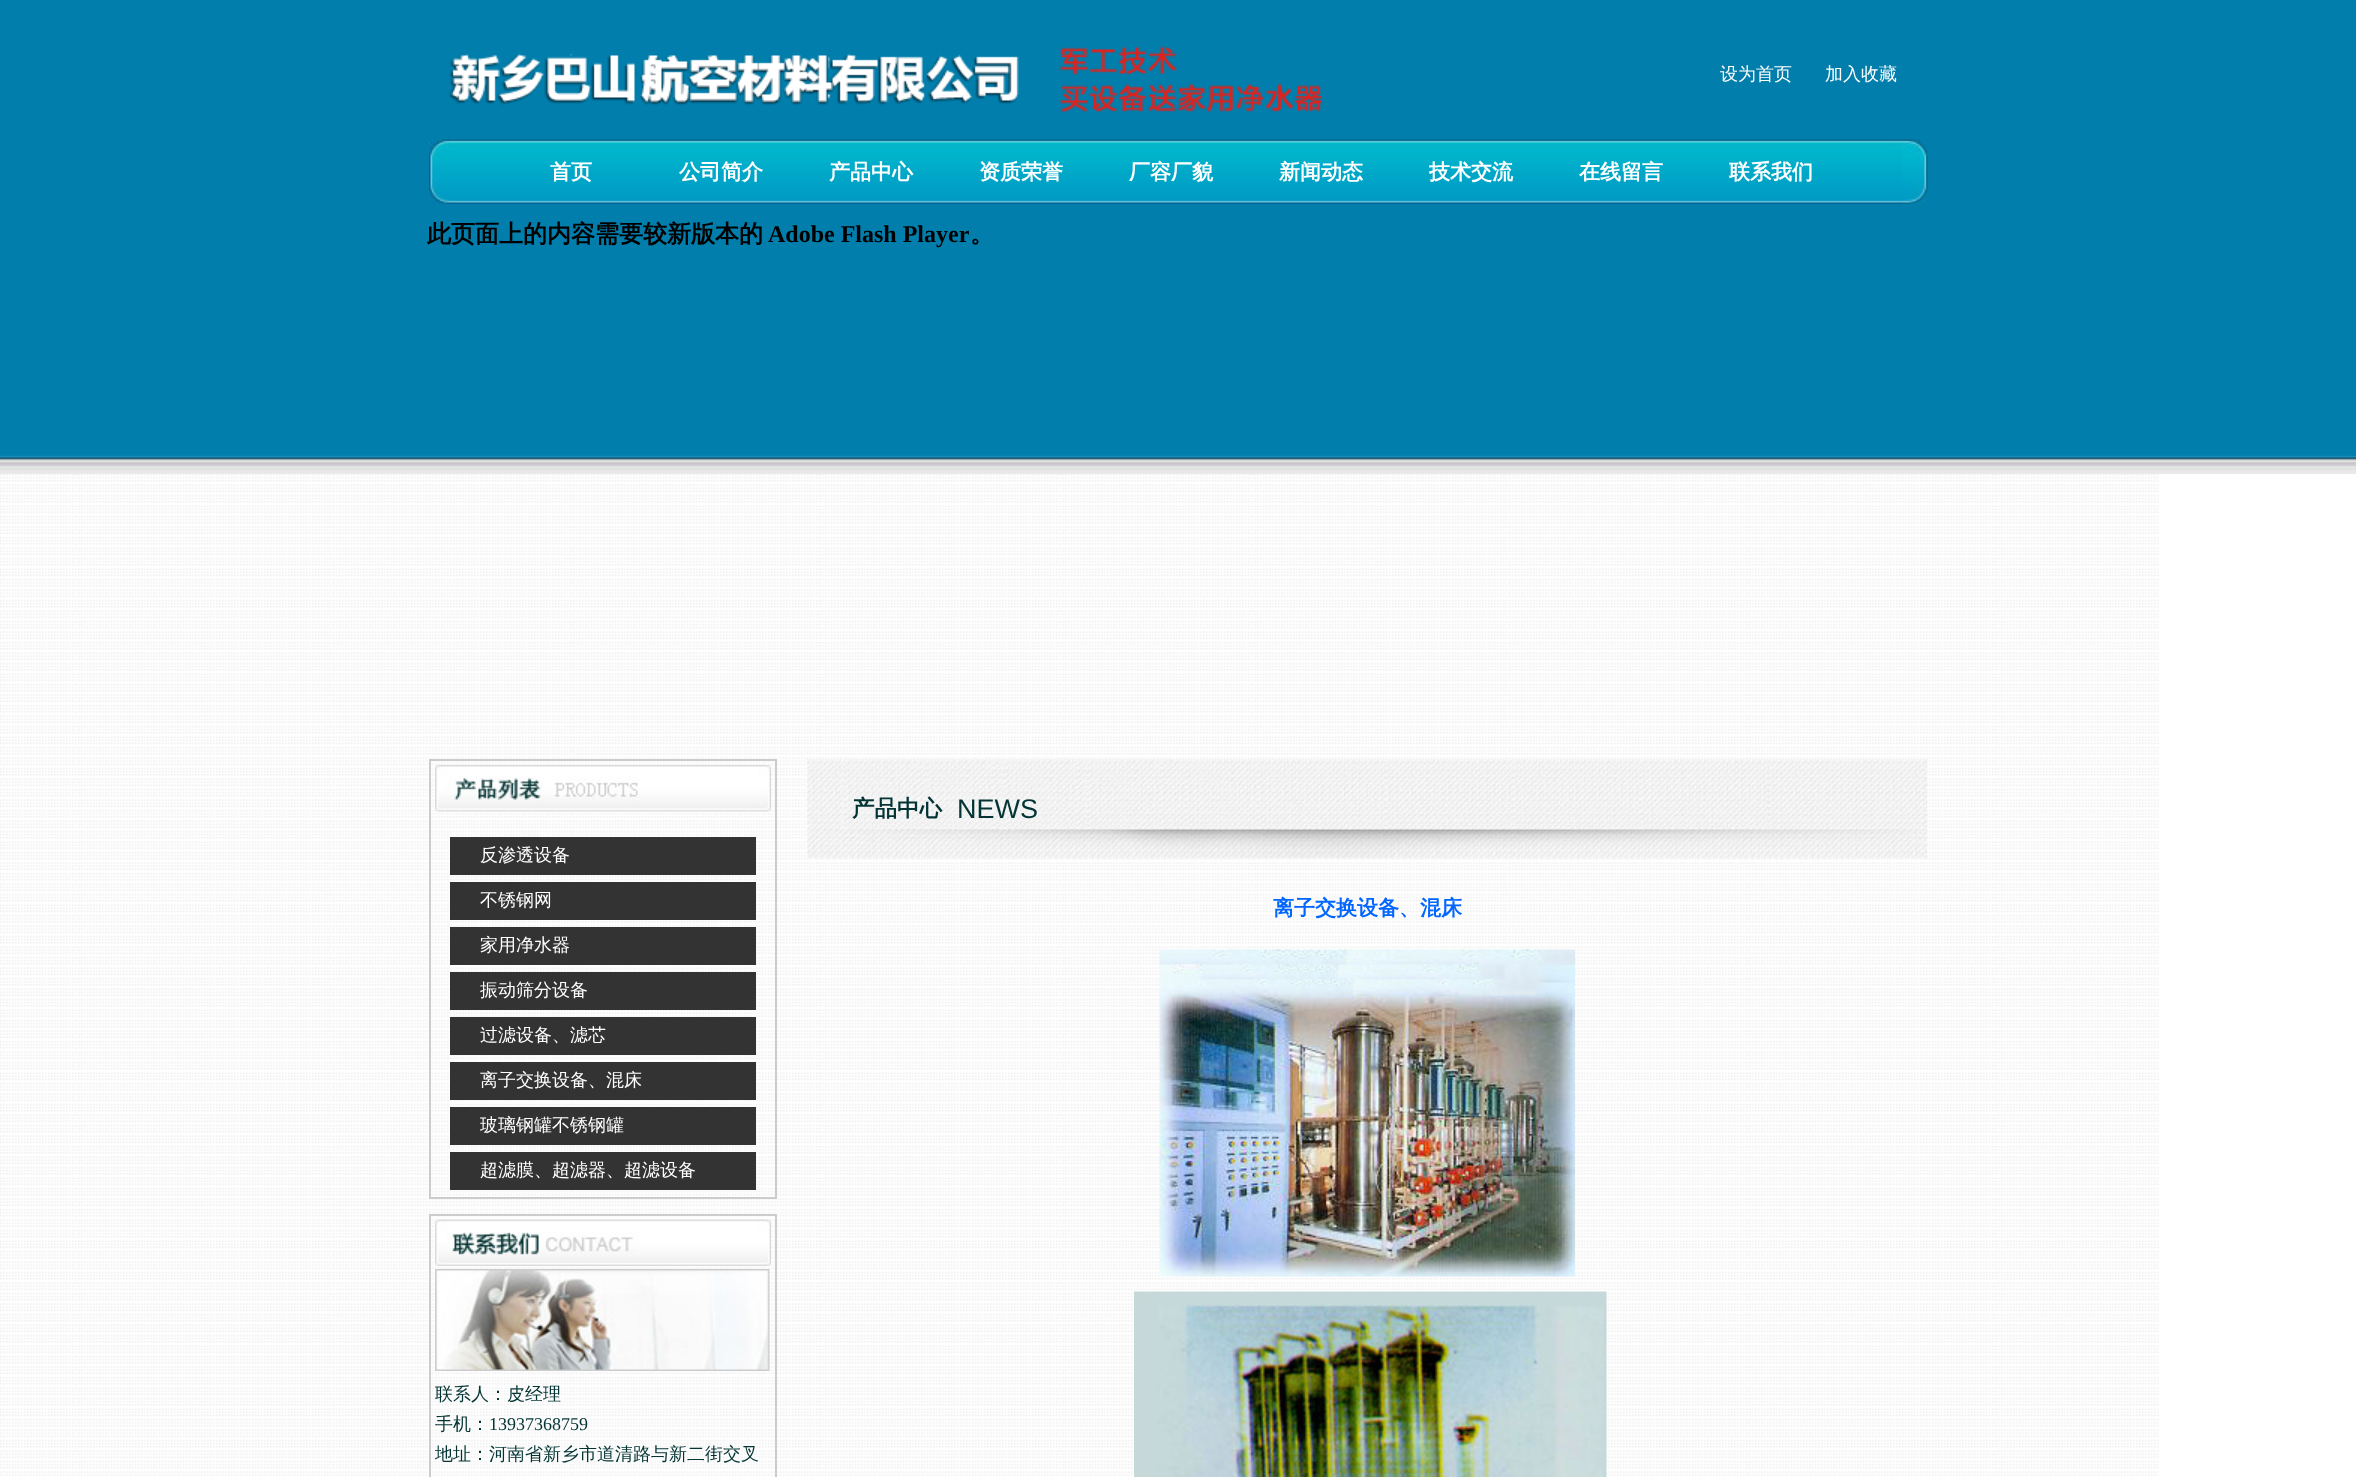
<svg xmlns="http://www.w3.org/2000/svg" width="2356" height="1477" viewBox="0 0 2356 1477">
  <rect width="100%" height="100%" fill="rgb(255,255,255)"/>
  <image x="0" y="474" width="2159" height="1002" href="pic1.png"/>
  <image x="0" y="0" width="2356" height="474" href="pic2.png"/>
  <image x="449" y="46" width="873" height="67" href="pic3.png"/>
  <g font-family="WenQuanYi Zen Hei" font-size="18" font-weight="500" fill="rgb(255,255,255)">
    <text x="1720" y="80">设为首页</text>
    <text x="1825" y="80">加入收藏</text>
  </g>
  <image x="429" y="139" width="1499" height="65" href="pic4.png"/>
  <g font-family="WenQuanYi Zen Hei" font-size="21" font-weight="bold" fill="rgb(255,255,255)">
    <text x="550" y="179">首页</text>
    <text x="679" y="179">公司简介</text>
    <text x="829" y="179">产品中心</text>
    <text x="979" y="179">资质荣誉</text>
    <text x="1129" y="179">厂容厂貌</text>
    <text x="1279" y="179">新闻动态</text>
    <text x="1429" y="179">技术交流</text>
    <text x="1579" y="179">在线留言</text>
    <text x="1729" y="179">联系我们</text>
  </g>
  <text x="427" y="242" font-family="WenQuanYi Zen Hei" font-size="24" font-weight="bold" fill="rgb(0,0,0)">此页面上的内容需要较新版本的</text>
  <text x="768" y="242" font-family="Liberation Serif" font-size="24" font-weight="bold" fill="rgb(0,0,0)">Adobe Flash Player</text>
  <text x="970" y="242" font-family="WenQuanYi Zen Hei" font-size="24" font-weight="bold" fill="rgb(0,0,0)">。</text>
  <rect x="430" y="760" width="346" height="438" fill="none" stroke="rgb(204,204,204)" stroke-width="2"/>
  <image x="435" y="765" width="336" height="47" href="pic5.png"/>
  <rect x="450" y="837" width="306" height="38" fill="rgb(51,51,51)"/>
  <text x="480" y="861" font-family="WenQuanYi Zen Hei" font-size="18" font-weight="500" fill="rgb(255,255,255)">反渗透设备</text>
  <rect x="450" y="882" width="306" height="38" fill="rgb(51,51,51)"/>
  <text x="480" y="906" font-family="WenQuanYi Zen Hei" font-size="18" font-weight="500" fill="rgb(255,255,255)">不锈钢网</text>
  <rect x="450" y="927" width="306" height="38" fill="rgb(51,51,51)"/>
  <text x="480" y="951" font-family="WenQuanYi Zen Hei" font-size="18" font-weight="500" fill="rgb(255,255,255)">家用净水器</text>
  <rect x="450" y="972" width="306" height="38" fill="rgb(51,51,51)"/>
  <text x="480" y="996" font-family="WenQuanYi Zen Hei" font-size="18" font-weight="500" fill="rgb(255,255,255)">振动筛分设备</text>
  <rect x="450" y="1017" width="306" height="38" fill="rgb(51,51,51)"/>
  <text x="480" y="1041" font-family="WenQuanYi Zen Hei" font-size="18" font-weight="500" fill="rgb(255,255,255)">过滤设备、滤芯</text>
  <rect x="450" y="1062" width="306" height="38" fill="rgb(51,51,51)"/>
  <text x="480" y="1086" font-family="WenQuanYi Zen Hei" font-size="18" font-weight="500" fill="rgb(255,255,255)">离子交换设备、混床</text>
  <rect x="450" y="1107" width="306" height="38" fill="rgb(51,51,51)"/>
  <text x="480" y="1131" font-family="WenQuanYi Zen Hei" font-size="18" font-weight="500" fill="rgb(255,255,255)">玻璃钢罐不锈钢罐</text>
  <rect x="450" y="1152" width="306" height="38" fill="rgb(51,51,51)"/>
  <text x="480" y="1176" font-family="WenQuanYi Zen Hei" font-size="18" font-weight="500" fill="rgb(255,255,255)">超滤膜、超滤器、超滤设备</text>
  <rect x="430" y="1215" width="346" height="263" fill="none" stroke="rgb(204,204,204)" stroke-width="2"/>
  <image x="435" y="1219" width="336" height="47" href="pic6.png"/>
  <image x="435" y="1269" width="335" height="102" href="pic7.png"/>
  <g font-family="WenQuanYi Zen Hei" font-size="18" font-weight="500" fill="rgb(3,51,51)">
    <text>
      <tspan x="435" y="1400">联系人：皮经理</tspan>
      <tspan x="435" y="1430">手机：</tspan>
    </text>
  </g>
  <text x="489" y="1430" font-family="Liberation Serif" font-size="18" fill="rgb(3,51,51)">13937368759</text>
  <text x="435" y="1460" font-family="WenQuanYi Zen Hei" font-size="18" font-weight="500" fill="rgb(3,51,51)">地址：河南省新乡市道清路与新二街交叉</text>
  <image x="807" y="759" width="1121" height="101" href="pic8.png"/>
  <text x="852" y="816" font-family="WenQuanYi Zen Hei" font-size="22.5" font-weight="bold" fill="rgb(3,51,51)">产品中心</text>
  <text x="957" y="818" font-family="Liberation Sans" font-size="27" fill="rgb(3,51,51)">NEWS</text>
  <text x="1273" y="915" font-family="WenQuanYi Zen Hei" font-size="21" font-weight="bold" fill="rgb(0,102,255)">离子交换设备、混床</text>
  <image x="1159" y="949" width="416" height="328" href="pic9.png"/>
  <image x="1134" y="1291" width="473" height="186" href="pic10.png"/>
</svg>
